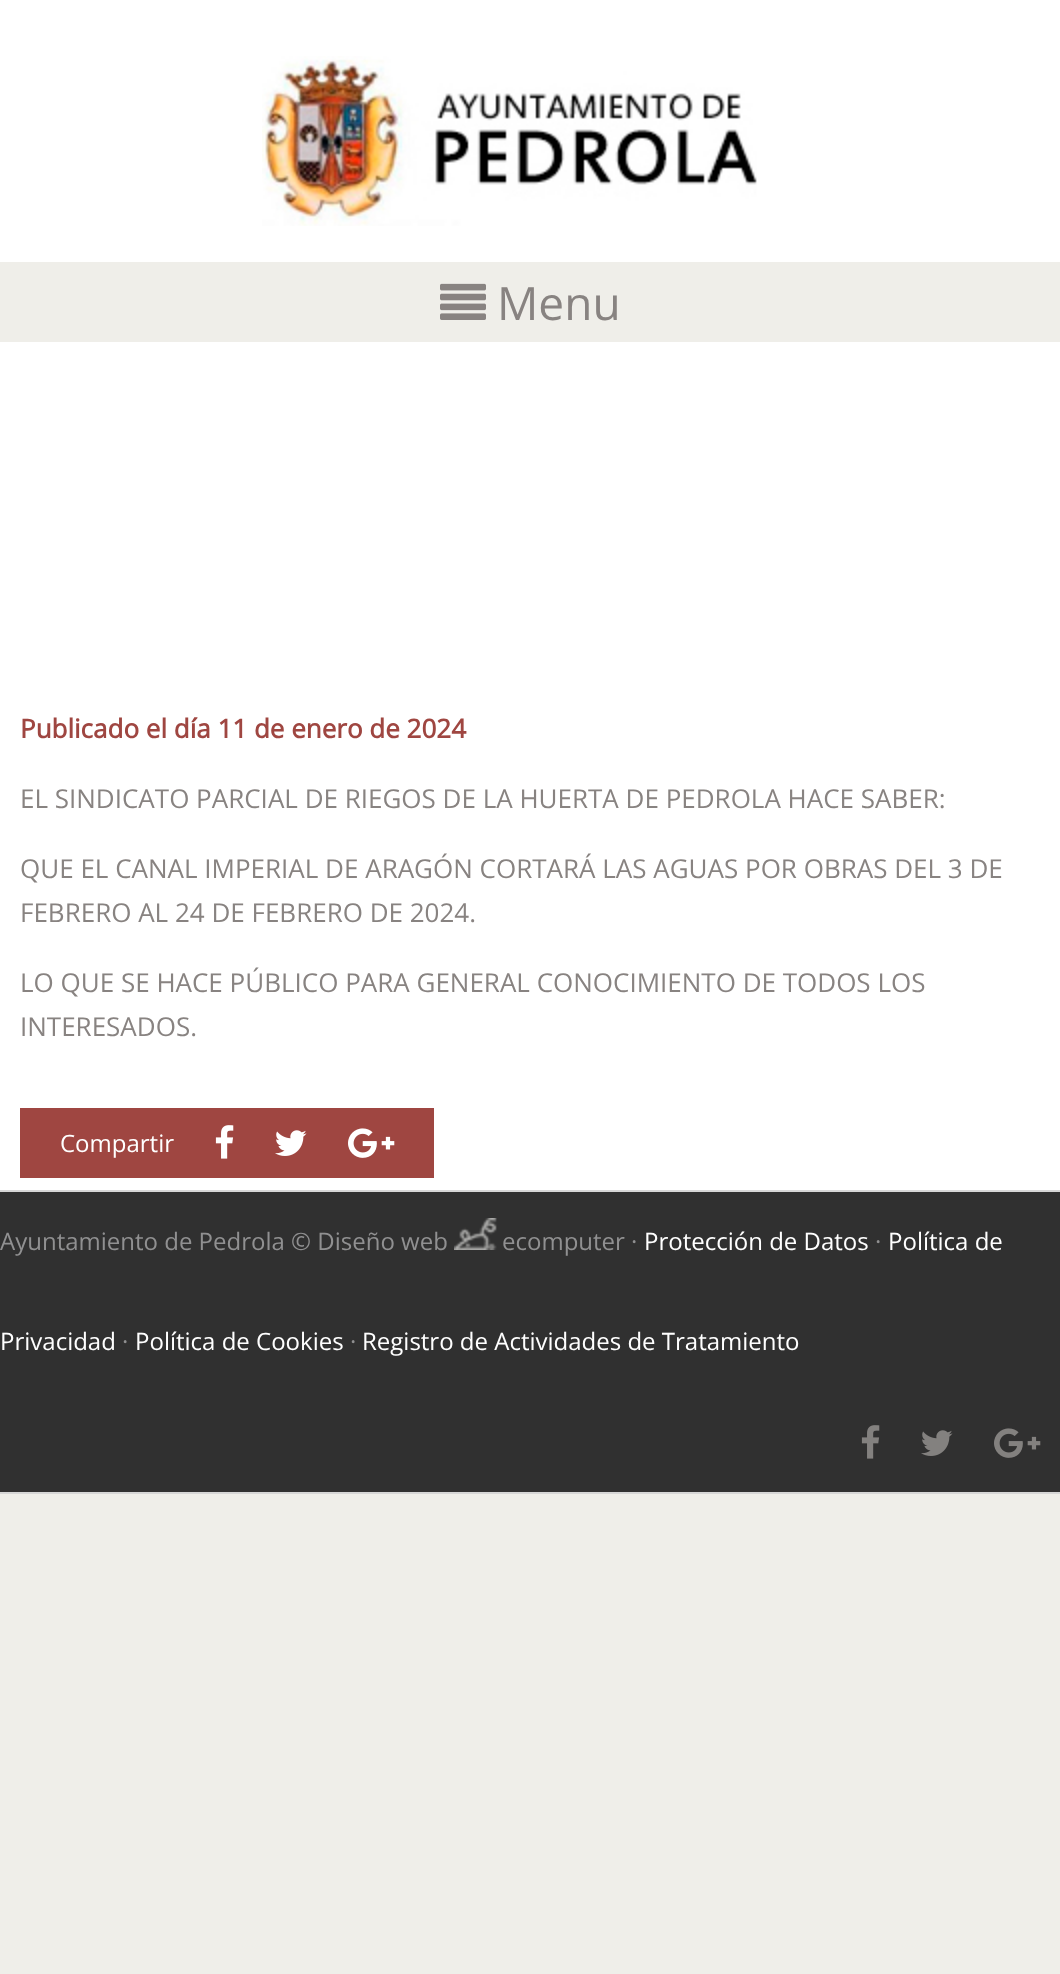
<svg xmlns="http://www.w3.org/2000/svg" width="1060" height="1974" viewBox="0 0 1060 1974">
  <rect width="100%" height="100%" fill="rgb(239,238,233)"/>
  <rect x="0" y="0" width="1060" height="262" fill="rgb(255,255,255)"/>
  <image x="262" y="56" width="495" height="170" href="pic1.png"/>
  <image x="440" y="283" width="46" height="37" href="pic2.png"/>
  <text x="497" y="320" font-family="Open Sans" font-size="46" fill="rgb(136,131,129)">Menu</text>
  <rect x="0" y="342" width="1060" height="848" fill="rgb(255,255,255)"/>
  <text x="20" y="738" font-family="Open Sans" font-size="26" font-weight="bold" fill="rgb(159,70,65)">Publicado el día 11 de enero de 2024</text>
  <g font-family="Open Sans" font-size="26" fill="rgb(136,131,129)">
    <text x="20" y="808">EL SINDICATO PARCIAL DE RIEGOS DE LA HUERTA DE PEDROLA HACE SABER:</text>
    <text>
      <tspan x="20" y="878">QUE EL CANAL IMPERIAL DE ARAGÓN CORTARÁ LAS AGUAS POR OBRAS DEL 3 DE</tspan>
      <tspan x="20" y="922">FEBRERO AL 24 DE FEBRERO DE 2024.</tspan>
    </text>
    <text>
      <tspan x="20" y="992">LO QUE SE HACE PÚBLICO PARA GENERAL CONOCIMIENTO DE TODOS LOS</tspan>
      <tspan x="20" y="1036">INTERESADOS.</tspan>
    </text>
  </g>
  <rect x="20" y="1108" width="414" height="70" fill="rgb(159,70,65)"/>
  <text x="60" y="1152" font-family="Open Sans" font-size="24" fill="rgb(255,255,255)">Compartir</text>
  <image x="215" y="1125" width="19" height="34" href="pic3.png"/>
  <image x="275" y="1130" width="32" height="26" href="pic4.png"/>
  <image x="348" y="1128" width="47" height="30" href="pic5.png"/>
  <rect x="0" y="1192" width="1060" height="300" fill="rgb(48,48,48)"/>
  <rect x="0" y="1190" width="1060" height="2" fill="rgb(214,214,214)"/>
  <rect x="0" y="1492" width="1060" height="2" fill="rgb(214,214,214)"/>
  <text x="0" y="1250" font-family="Open Sans" font-size="24" fill="rgb(144,144,145)">Ayuntamiento de Pedrola © Diseño web</text>
  <image x="454" y="1218" width="43" height="32" href="pic6.png"/>
  <text x="502" y="1250" font-family="Open Sans" font-size="24" fill="rgb(144,144,145)">ecomputer ·</text>
  <text x="644" y="1250" font-family="Open Sans" font-size="24" fill="rgb(255,255,255)">Protección de Datos</text>
  <text x="875" y="1250" font-family="Open Sans" font-size="24" fill="rgb(144,144,145)">·</text>
  <g font-family="Open Sans" font-size="24" fill="rgb(255,255,255)">
    <text x="888" y="1250">Política de</text>
    <text x="0" y="1350">Privacidad</text>
  </g>
  <text x="122" y="1350" font-family="Open Sans" font-size="24" fill="rgb(144,144,145)">·</text>
  <text x="135" y="1350" font-family="Open Sans" font-size="24" fill="rgb(255,255,255)">Política de Cookies</text>
  <text x="350" y="1350" font-family="Open Sans" font-size="24" fill="rgb(144,144,145)">·</text>
  <text x="362" y="1350" font-family="Open Sans" font-size="24" fill="rgb(255,255,255)">Registro de Actividades de Tratamiento</text>
  <image x="861" y="1425" width="19" height="34" href="pic7.png"/>
  <image x="921" y="1430" width="32" height="26" href="pic8.png"/>
  <image x="994" y="1428" width="47" height="30" href="pic9.png"/>
</svg>
